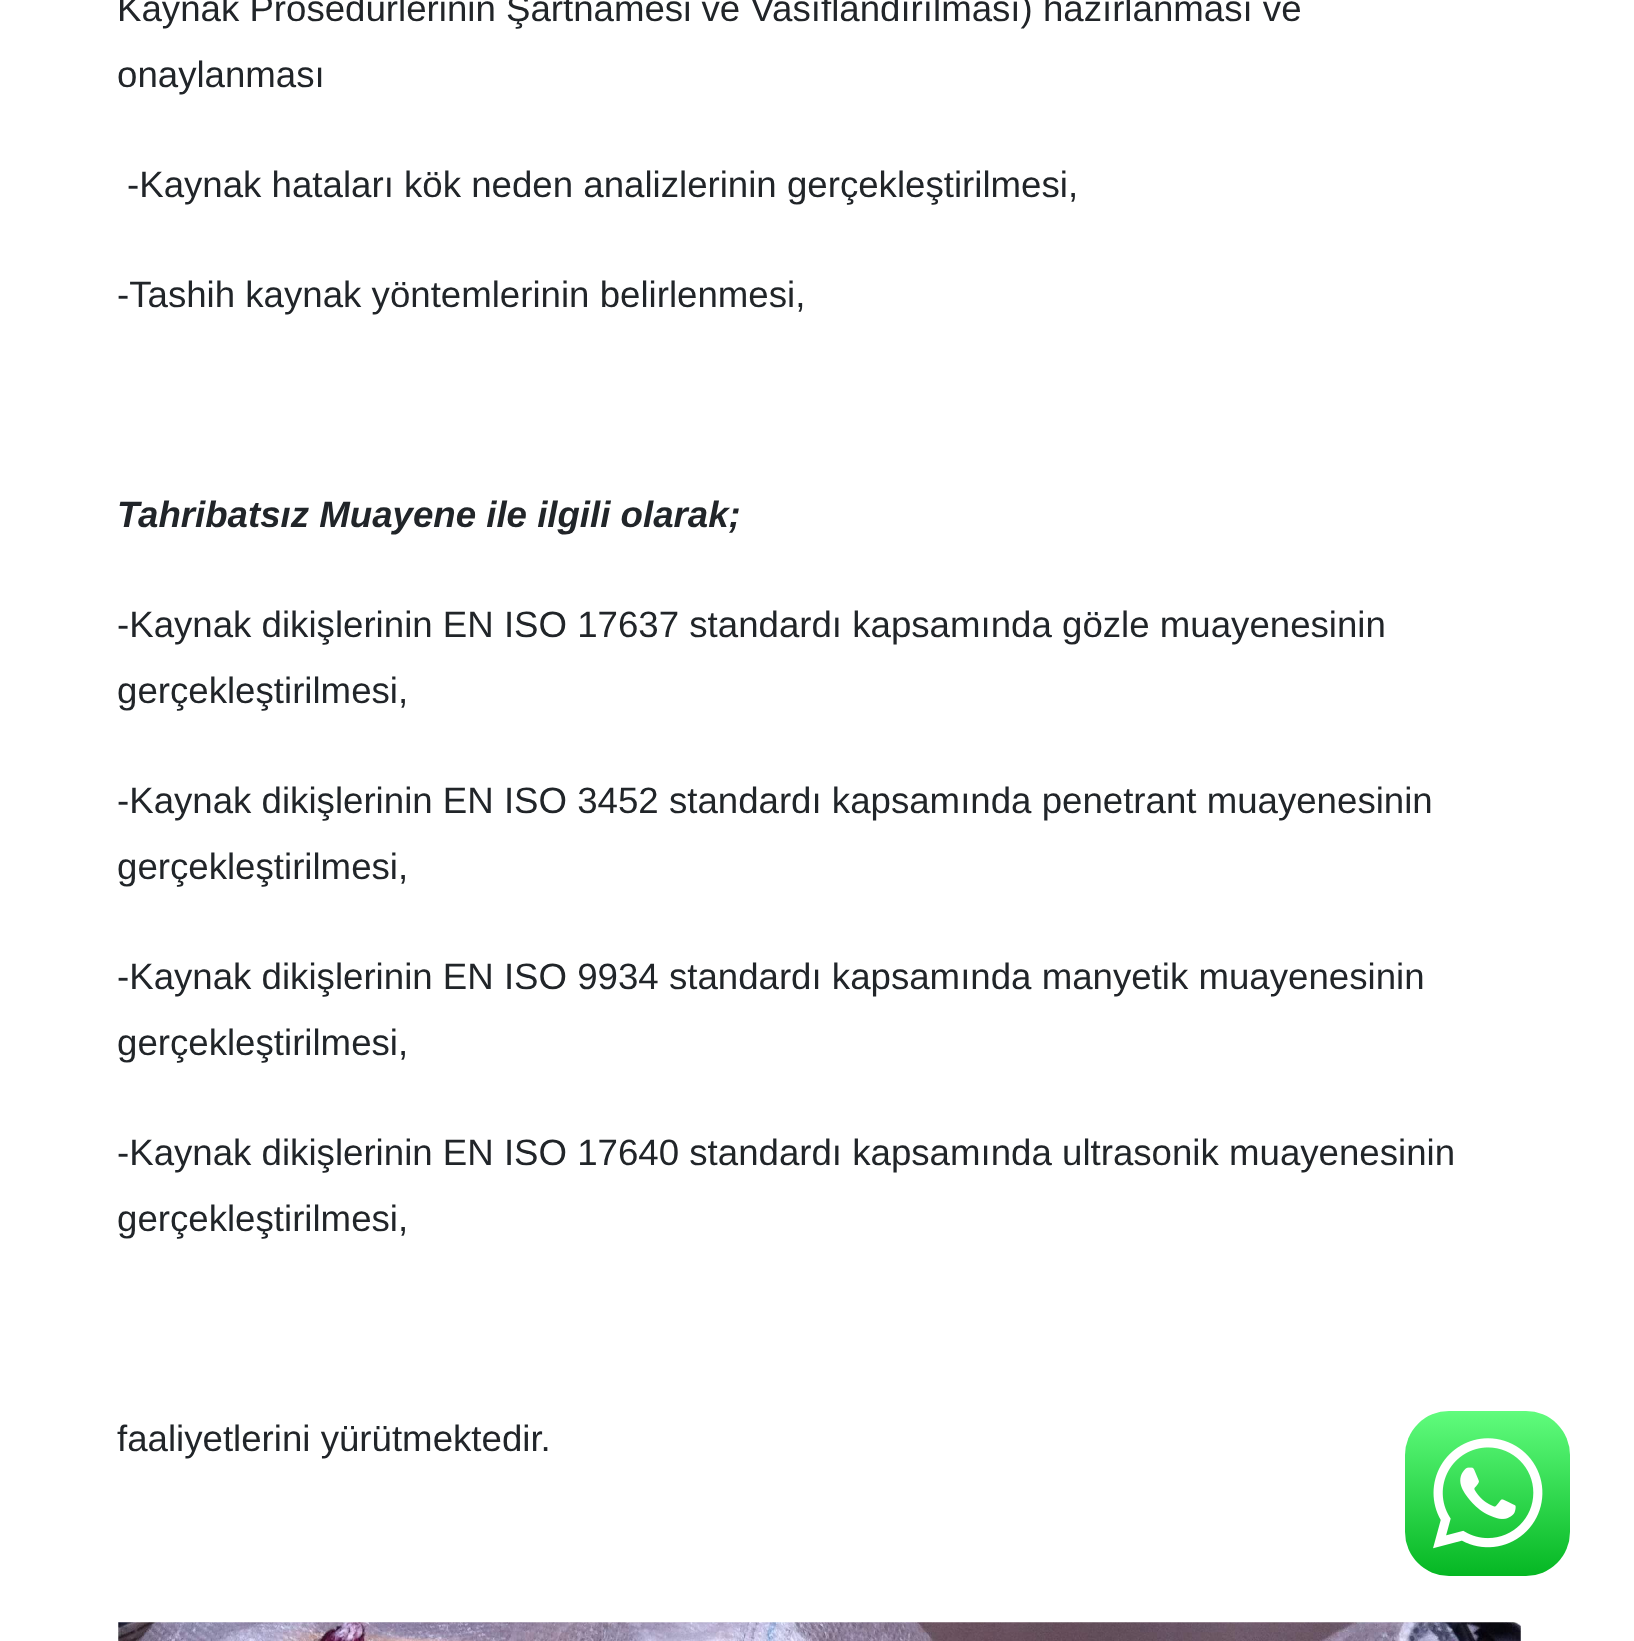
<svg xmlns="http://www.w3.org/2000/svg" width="1634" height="1641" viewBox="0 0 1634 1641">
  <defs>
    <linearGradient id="g1" gradientUnits="userSpaceOnUse" x1="1488" y1="1411" x2="1488" y2="1576"><stop offset="0" stop-color="rgb(96,252,125)"/><stop offset="1" stop-color="rgb(5,183,35)"/></linearGradient>
  </defs>
  <rect width="100%" height="100%" fill="rgb(255,255,255)"/>
  <g font-family="Liberation Sans" font-size="36.65" fill="rgb(33,37,41)">
    <text>
      <tspan x="117" y="21">Kaynak Prosedürlerinin Şartnamesi ve Vasıflandırılması) hazırlanması ve</tspan>
      <tspan x="117" y="87">onaylanması</tspan>
    </text>
    <text x="127" y="197">-Kaynak hataları kök neden analizlerinin gerçekleştirilmesi,</text>
    <text x="117" y="307">-Tashih kaynak yöntemlerinin belirlenmesi,</text>
  </g>
  <text x="117" y="527" font-family="Liberation Sans" font-size="36.65" font-weight="bold" font-style="italic" fill="rgb(33,37,41)">Tahribatsız Muayene ile ilgili olarak;</text>
  <g font-family="Liberation Sans" font-size="36.65" fill="rgb(33,37,41)">
    <text>
      <tspan x="117" y="637">-Kaynak dikişlerinin EN ISO 17637 standardı kapsamında gözle muayenesinin</tspan>
      <tspan x="117" y="703">gerçekleştirilmesi,</tspan>
    </text>
    <text>
      <tspan x="117" y="813">-Kaynak dikişlerinin EN ISO 3452 standardı kapsamında penetrant muayenesinin</tspan>
      <tspan x="117" y="879">gerçekleştirilmesi,</tspan>
    </text>
    <text>
      <tspan x="117" y="989">-Kaynak dikişlerinin EN ISO 9934 standardı kapsamında manyetik muayenesinin</tspan>
      <tspan x="117" y="1055">gerçekleştirilmesi,</tspan>
    </text>
    <text>
      <tspan x="117" y="1165">-Kaynak dikişlerinin EN ISO 17640 standardı kapsamında ultrasonik muayenesinin</tspan>
      <tspan x="117" y="1231">gerçekleştirilmesi,</tspan>
    </text>
    <text x="117" y="1451">faaliyetlerini yürütmektedir.</text>
  </g>
  <image x="118" y="1622" width="1403" height="19" href="pic1.png"/>
  <rect x="1405" y="1411" width="165" height="165" rx="44" fill="url(#g1)"/>
  <image x="1433" y="1438" width="110" height="111" href="pic2.png"/>
</svg>
